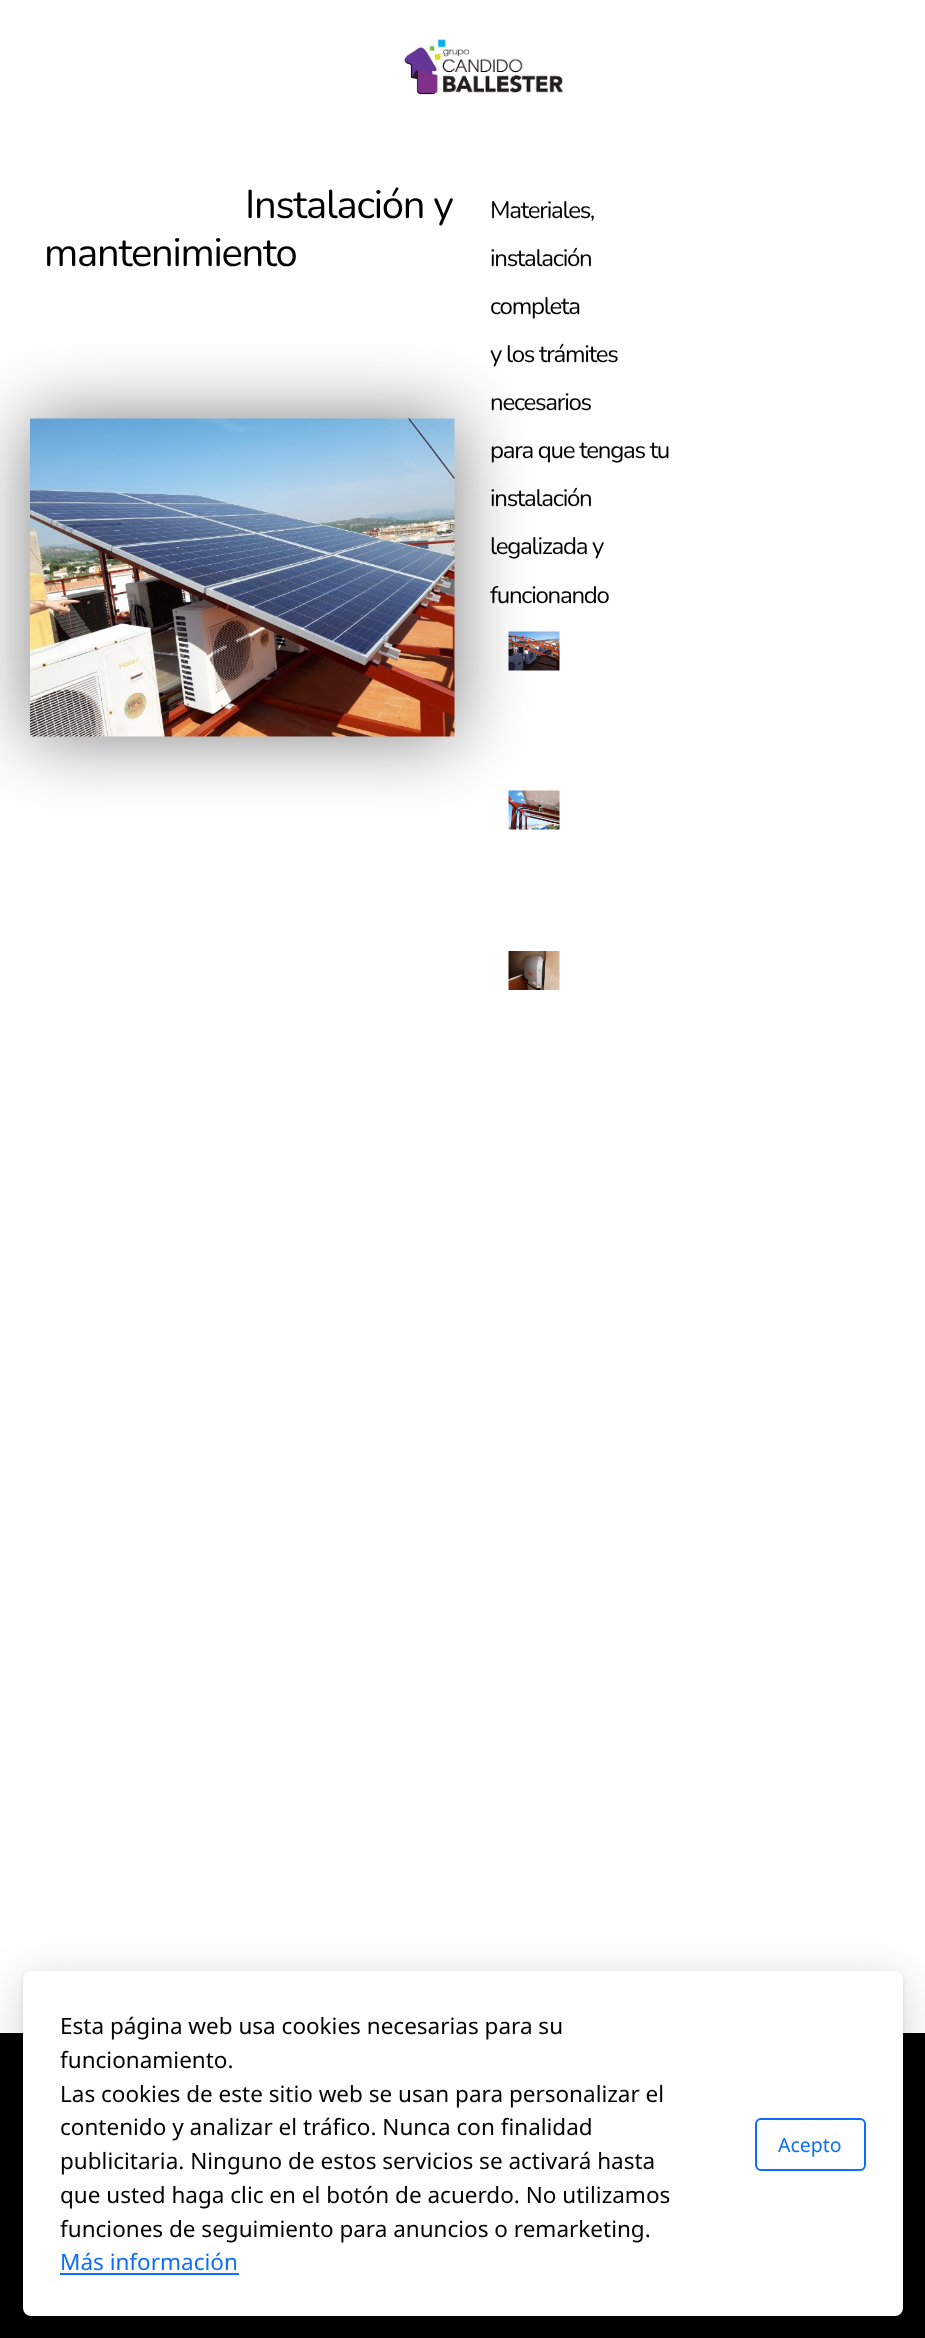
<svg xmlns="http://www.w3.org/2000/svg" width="925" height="2338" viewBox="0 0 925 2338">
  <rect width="100%" height="100%" fill="rgb(255,255,255)"/>
  <image x="404" y="39" width="160" height="56" href="pic1.png"/>
  <g font-family="Nunito" font-size="40" letter-spacing="-1.25" fill="rgb(0,0,0)">
    <text x="245" y="218">Instalación y</text>
    <text x="44" y="266">mantenimiento</text>
  </g>
  <rect x="30" y="419" width="425" height="318" fill="rgba(0,0,0,0.5)" filter="blur(37.5px)"/>
  <image x="30" y="418" width="425" height="319" href="pic2.png"/>
  <g font-family="Nunito" font-size="24" letter-spacing="-1.25" fill="rgb(0,0,0)">
    <text x="490" y="218">Materiales,</text>
    <text x="490" y="266">instalación</text>
    <text x="490" y="314">completa</text>
    <text x="490" y="362">y los trámites</text>
    <text x="490" y="410">necesarios</text>
    <text x="490" y="458">para que tengas tu</text>
    <text x="490" y="506">instalación</text>
    <text x="490" y="554">legalizada y</text>
    <text x="490" y="603">funcionando</text>
  </g>
  <image x="508" y="631" width="52" height="40" href="pic3.png"/>
  <image x="508" y="790" width="52" height="40" href="pic4.png"/>
  <image x="508" y="951" width="52" height="39" href="pic5.png"/>
  <rect x="0" y="2033" width="925" height="305" fill="rgb(0,0,0)"/>
  <rect x="23" y="1979" width="880" height="345" rx="8" fill="rgba(0,0,0,0.16)" filter="blur(22.5px)"/>
  <rect x="23" y="1973" width="880" height="345" rx="8" fill="rgba(0,0,0,0.1)" filter="blur(2px)"/>
  <rect x="23" y="1971" width="880" height="345" rx="8" fill="rgb(255,255,255)"/>
  <g font-family="Noto Sans" font-size="22.5" fill="rgb(0,0,0)">
    <text>
      <tspan x="60" y="2034">Esta página web usa cookies necesarias para su</tspan>
      <tspan x="60" y="2068">funcionamiento.</tspan>
      <tspan x="60" y="2102">Las cookies de este sitio web se usan para personalizar el</tspan>
      <tspan x="60" y="2135">contenido y analizar el tráfico. Nunca con finalidad</tspan>
      <tspan x="60" y="2169">publicitaria. Ninguno de estos servicios se activará hasta</tspan>
      <tspan x="60" y="2203">que usted haga clic en el botón de acuerdo. No utilizamos</tspan>
      <tspan x="60" y="2237">funciones de seguimiento para anuncios o remarketing.</tspan>
    </text>
  </g>
  <text x="60" y="2270" font-family="Noto Sans" font-size="22.5" fill="rgb(13,110,253)">Más información</text>
  <rect x="60" y="2273" width="179" height="2" fill="rgb(13,110,253)"/>
  <rect x="756" y="2119" width="109" height="51" rx="5" fill="none" stroke="rgb(13,110,253)" stroke-width="2"/>
  <text x="778" y="2152" font-family="Noto Sans" font-size="19.5" fill="rgb(13,110,253)">Acepto</text>
</svg>
